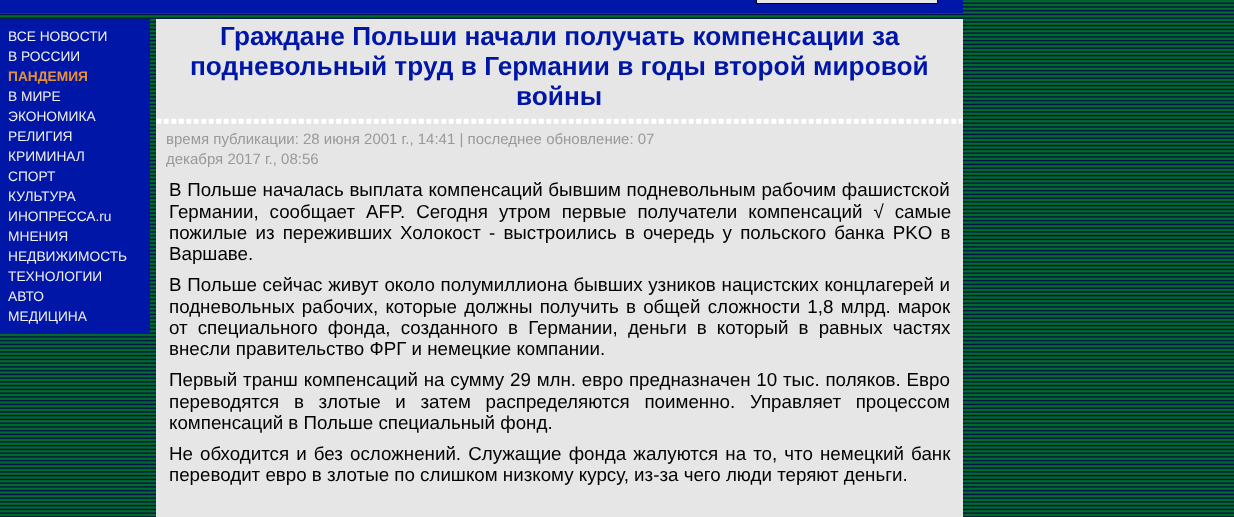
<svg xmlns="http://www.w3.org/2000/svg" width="1234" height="517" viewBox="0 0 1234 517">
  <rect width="100%" height="100%" fill="rgb(255,255,255)"/>
  <image x="0" y="0" width="1234" height="517" href="pic1.png"/>
  <rect x="0" y="0" width="963" height="13" fill="rgb(0,22,166)"/>
  <rect x="756.5" y="-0.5" width="181" height="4" fill="rgb(230,230,230)" stroke="rgb(0,0,0)"/>
  <rect x="0" y="19" width="150" height="315" fill="rgb(0,22,166)"/>
  <g font-family="Liberation Sans" font-size="13.75" fill="rgb(239,239,239)">
    <text>
      <tspan x="8" y="41">ВСЕ НОВОСТИ</tspan>
      <tspan x="8" y="61">В РОССИИ</tspan>
    </text>
  </g>
  <text x="8" y="81" font-family="Liberation Sans" font-size="13.75" font-weight="bold" fill="rgb(227,145,63)">ПАНДЕМИЯ</text>
  <g font-family="Liberation Sans" font-size="13.75" fill="rgb(239,239,239)">
    <text>
      <tspan x="8" y="101">В МИРЕ</tspan>
      <tspan x="8" y="121">ЭКОНОМИКА</tspan>
      <tspan x="8" y="141">РЕЛИГИЯ</tspan>
      <tspan x="8" y="161">КРИМИНАЛ</tspan>
      <tspan x="8" y="181">СПОРТ</tspan>
      <tspan x="8" y="201">КУЛЬТУРА</tspan>
      <tspan x="8" y="221">ИНОПРЕССА.ru</tspan>
      <tspan x="8" y="241">МНЕНИЯ</tspan>
      <tspan x="8" y="261">НЕДВИЖИМОСТЬ</tspan>
      <tspan x="8" y="281">ТЕХНОЛОГИИ</tspan>
      <tspan x="8" y="301">АВТО</tspan>
      <tspan x="8" y="321">МЕДИЦИНА</tspan>
    </text>
  </g>
  <rect x="156" y="19" width="807" height="498" fill="rgb(230,230,230)"/>
  <g font-family="Liberation Sans" font-size="26.25" font-weight="bold" fill="rgb(0,22,166)">
    <text x="220" y="45">Граждане Польши начали получать компенсации за</text>
    <text x="190" y="75">подневольный труд в Германии в годы второй мировой</text>
    <text x="516" y="105">войны</text>
  </g>
  <image x="156" y="118" width="807" height="6" href="pic2.png"/>
  <g font-family="Liberation Sans" font-size="15" fill="rgb(153,153,153)">
    <text>
      <tspan x="166" y="144">время публикации: 28 июня 2001 г., 14:41 | последнее обновление: 07</tspan>
      <tspan x="166" y="164">декабря 2017 г., 08:56</tspan>
    </text>
  </g>
  <g font-family="Liberation Sans" font-size="18.75" fill="rgb(0,0,0)">
    <text>
      <tspan x="169" y="196" word-spacing="0.5">В Польше началась выплата компенсаций бывшим подневольным рабочим фашистской</tspan>
      <tspan x="169" y="218" word-spacing="5.75">Германии, сообщает AFP. Сегодня утром первые получатели компенсаций √ самые</tspan>
      <tspan x="169" y="239" word-spacing="3">пожилые из переживших Холокост - выстроились в очередь у польского банка PKO в</tspan>
      <tspan x="169" y="260">Варшаве.</tspan>
      <tspan x="169" y="291" word-spacing="0.5">В Польше сейчас живут около полумиллиона бывших узников нацистских концлагерей и</tspan>
      <tspan x="169" y="313" word-spacing="2">подневольных рабочих, которые должны получить в общей сложности 1,8 млрд. марок</tspan>
      <tspan x="169" y="334" word-spacing="4.9">от специального фонда, созданного в Германии, деньги в который в равных частях</tspan>
      <tspan x="169" y="355">внесли правительство ФРГ и немецкие компании.</tspan>
      <tspan x="169" y="386" word-spacing="0.6">Первый транш компенсаций на сумму 29 млн. евро предназначен 10 тыс. поляков. Евро</tspan>
      <tspan x="169" y="408" word-spacing="9.5">переводятся в злотые и затем распределяются поименно. Управляет процессом</tspan>
      <tspan x="169" y="429">компенсаций в Польше специальный фонд.</tspan>
      <tspan x="169" y="460" word-spacing="1.9">Не обходится и без осложнений. Служащие фонда жалуются на то, что немецкий банк</tspan>
      <tspan x="169" y="481">переводит евро в злотые по слишком низкому курсу, из-за чего люди теряют деньги.</tspan>
    </text>
  </g>
</svg>
